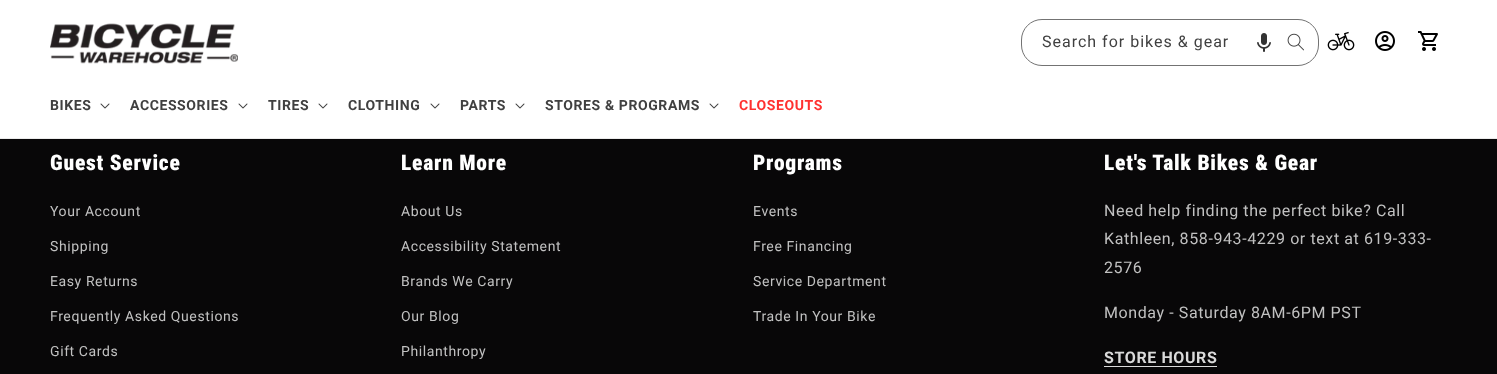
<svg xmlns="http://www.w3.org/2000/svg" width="1497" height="374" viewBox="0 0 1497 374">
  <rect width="100%" height="100%" fill="rgb(8,7,8)"/>
  <rect x="0" y="0" width="1497" height="138" fill="rgb(255,255,255)"/>
  <rect x="0" y="138" width="1497" height="1" fill="rgb(235,235,235)"/>
  <image x="50" y="23" width="188" height="41" href="pic1.png"/>
  <image x="1287" y="33" width="17" height="18" href="pic3.png"/>
  <rect x="1021.5" y="19.5" width="297" height="46" rx="20.5" fill="none" stroke="rgb(115,115,115)"/>
  <text x="1042" y="47" font-family="Roboto" font-size="16" letter-spacing="1" fill="rgb(64,64,64)">Search for bikes &amp; gear</text>
  <image x="1257" y="33" width="14" height="19" href="pic2.png"/>
  <image x="1327" y="31" width="28" height="20" href="pic4.png"/>
  <image x="1375" y="31" width="20" height="20" href="pic5.png"/>
  <image x="1418" y="31" width="20" height="20" href="pic6.png"/>
  <text x="50" y="110" font-family="Roboto" font-size="14" font-weight="bold" letter-spacing="0.6" fill="rgb(64,64,64)">BIKES</text>
  <image x="100" y="103" width="10" height="6" href="pic7.png"/>
  <text x="130" y="110" font-family="Roboto" font-size="14" font-weight="bold" letter-spacing="0.6" fill="rgb(64,64,64)">ACCESSORIES</text>
  <image x="238" y="103" width="10" height="6" href="pic7.png"/>
  <text x="268" y="110" font-family="Roboto" font-size="14" font-weight="bold" letter-spacing="0.6" fill="rgb(64,64,64)">TIRES</text>
  <image x="318" y="103" width="10" height="6" href="pic7.png"/>
  <text x="348" y="110" font-family="Roboto" font-size="14" font-weight="bold" letter-spacing="0.6" fill="rgb(64,64,64)">CLOTHING</text>
  <image x="430" y="103" width="10" height="6" href="pic7.png"/>
  <text x="460" y="110" font-family="Roboto" font-size="14" font-weight="bold" letter-spacing="0.6" fill="rgb(64,64,64)">PARTS</text>
  <image x="515" y="103" width="10" height="6" href="pic7.png"/>
  <text x="545" y="110" font-family="Roboto" font-size="14" font-weight="bold" letter-spacing="0.6" fill="rgb(64,64,64)">STORES &amp; PROGRAMS</text>
  <image x="709" y="103" width="10" height="6" href="pic7.png"/>
  <text x="739" y="110" font-family="Roboto" font-size="14" font-weight="bold" letter-spacing="0.6" fill="rgb(255,49,48)">CLOSEOUTS</text>
  <text x="50" y="170" font-family="Roboto Condensed" font-size="21.5" font-weight="900" letter-spacing="0.75" fill="rgb(255,255,255)">Guest Service</text>
  <g font-family="Roboto" font-size="14" letter-spacing="0.6" fill="rgb(193,193,193)">
    <text x="50" y="216">Your Account</text>
    <text x="50" y="251">Shipping</text>
    <text x="50" y="286">Easy Returns</text>
    <text x="50" y="321">Frequently Asked Questions</text>
    <text x="50" y="356">Gift Cards</text>
  </g>
  <text x="401" y="170" font-family="Roboto Condensed" font-size="21.5" font-weight="900" letter-spacing="0.75" fill="rgb(255,255,255)">Learn More</text>
  <g font-family="Roboto" font-size="14" letter-spacing="0.6" fill="rgb(193,193,193)">
    <text x="401" y="216">About Us</text>
    <text x="401" y="251">Accessibility Statement</text>
    <text x="401" y="286">Brands We Carry</text>
    <text x="401" y="321">Our Blog</text>
    <text x="401" y="356">Philanthropy</text>
  </g>
  <text x="753" y="170" font-family="Roboto Condensed" font-size="21.5" font-weight="900" letter-spacing="0.75" fill="rgb(255,255,255)">Programs</text>
  <g font-family="Roboto" font-size="14" letter-spacing="0.6" fill="rgb(193,193,193)">
    <text x="753" y="216">Events</text>
    <text x="753" y="251">Free Financing</text>
    <text x="753" y="286">Service Department</text>
    <text x="753" y="321">Trade In Your Bike</text>
  </g>
  <text x="1104" y="170" font-family="Roboto Condensed" font-size="21.5" font-weight="900" letter-spacing="0.75" fill="rgb(255,255,255)">Let's Talk Bikes &amp; Gear</text>
  <g font-family="Roboto" font-size="16" letter-spacing="0.6" fill="rgb(193,193,193)">
    <text>
      <tspan x="1104" y="216">Need help finding the perfect bike? Call</tspan>
      <tspan x="1104" y="244">Kathleen, 858-943-4229 or text at 619-333-</tspan>
      <tspan x="1104" y="273">2576</tspan>
    </text>
    <text x="1104" y="318">Monday - Saturday 8AM-6PM PST</text>
  </g>
  <text x="1104" y="363" font-family="Roboto" font-size="16" font-weight="bold" letter-spacing="0.6" fill="rgb(218,218,218)">STORE HOURS</text>
  <rect x="1104" y="366" width="113" height="1" fill="rgb(218,218,218)"/>
</svg>
